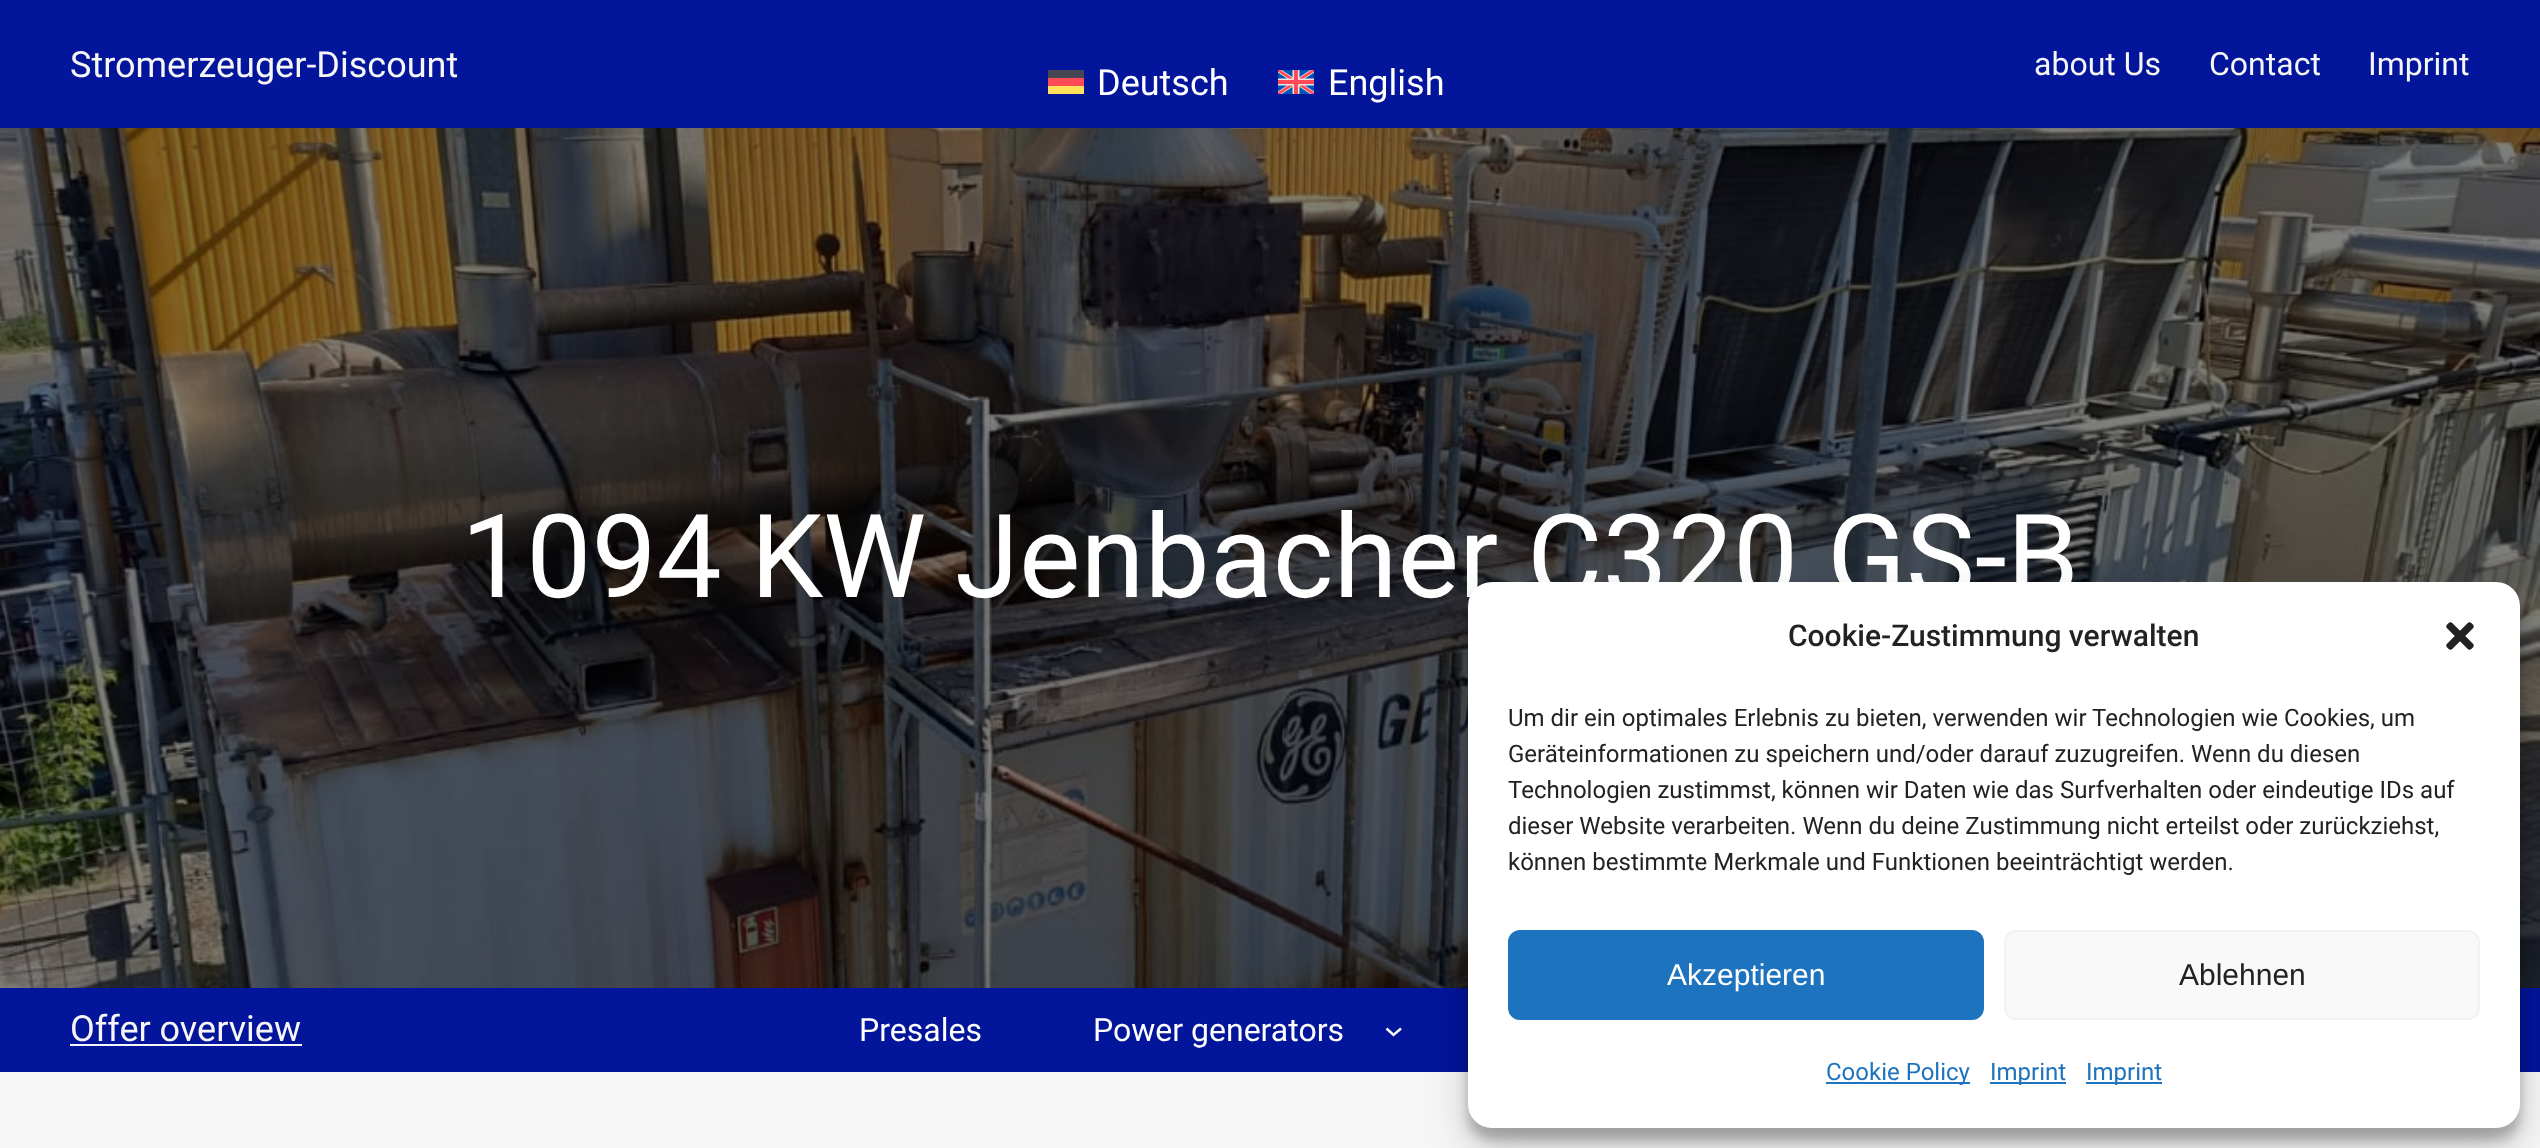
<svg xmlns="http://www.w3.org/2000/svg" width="2540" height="1148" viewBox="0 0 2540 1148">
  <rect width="100%" height="100%" fill="rgb(246,246,246)"/>
  <rect x="0" y="0" width="2540" height="128" fill="rgb(3,21,155)"/>
  <text x="70" y="77" font-family="Roboto" font-size="36" fill="rgb(246,246,246)">Stromerzeuger-Discount</text>
  <rect x="1048" y="70" width="36" height="8" fill="rgb(70,70,85)"/>
  <text x="1097" y="95" font-family="Roboto" font-size="36" fill="rgb(255,255,255)">Deutsch</text>
  <rect x="1048" y="78" width="36" height="8" fill="rgb(255,75,85)"/>
  <rect x="1048" y="86" width="36" height="8" fill="rgb(255,225,90)"/>
  <image x="1278" y="70" width="36" height="24" href="pic1.png"/>
  <text x="1328" y="95" font-family="Roboto" font-size="36" fill="rgb(255,255,255)">English</text>
  <g font-family="Roboto" font-size="32" fill="rgb(246,246,246)">
    <text x="2034" y="75">about Us</text>
    <text x="2209" y="75">Contact</text>
    <text x="2368" y="75">Imprint</text>
  </g>
  <image x="0" y="128" width="2540" height="860" href="pic2.png"/>
  <text x="461" y="597" font-family="Roboto" font-size="116" fill="rgb(255,255,255)">1094 KW Jenbacher C320 GS-B</text>
  <rect x="0" y="988" width="2540" height="84" fill="rgb(3,21,155)"/>
  <text x="70" y="1041" font-family="Roboto" font-size="36" fill="rgb(246,246,246)">Offer overview</text>
  <rect x="70" y="1044" width="232" height="2" fill="rgb(246,246,246)"/>
  <g font-family="Roboto" font-size="32" fill="rgb(255,255,255)">
    <text x="859" y="1041">Presales</text>
    <text x="1093" y="1041">Power generators</text>
  </g>
  <path d="M1386.5 1028.5L1393.5 1035L1401 1028.5" fill="none" stroke="rgb(255,255,255)" stroke-width="2.4"/>
  <rect x="1468" y="594" width="1052" height="546" rx="24" fill="rgba(0,0,0,0.23)" filter="blur(6px)"/>
  <rect x="1468" y="602" width="1052" height="546" rx="24" fill="rgba(0,0,0,0.19)" filter="blur(20px)"/>
  <rect x="1468" y="582" width="1052" height="546" rx="24" fill="rgb(255,255,255)"/>
  <text x="1788" y="646" font-family="Roboto" font-size="30" font-weight="500" fill="rgb(34,34,34)">Cookie-Zustimmung verwalten</text>
  <image x="2446" y="622" width="28" height="28" href="pic3.png"/>
  <g font-family="Roboto" font-size="24" fill="rgb(34,34,34)">
    <text>
      <tspan x="1508" y="726">Um dir ein optimales Erlebnis zu bieten, verwenden wir Technologien wie Cookies, um</tspan>
      <tspan x="1508" y="762">Geräteinformationen zu speichern und/oder darauf zuzugreifen. Wenn du diesen</tspan>
      <tspan x="1508" y="798">Technologien zustimmst, können wir Daten wie das Surfverhalten oder eindeutige IDs auf</tspan>
      <tspan x="1508" y="834">dieser Website verarbeiten. Wenn du deine Zustimmung nicht erteilst oder zurückziehst,</tspan>
      <tspan x="1508" y="870">können bestimmte Merkmale und Funktionen beeinträchtigt werden.</tspan>
    </text>
  </g>
  <rect x="1509" y="931" width="474" height="88" rx="11" fill="rgb(30,115,190)" stroke="rgb(30,115,190)" stroke-width="2"/>
  <text x="1667" y="985" font-family="Liberation Sans" font-size="30" fill="rgb(255,255,255)">Akzeptieren</text>
  <rect x="2005" y="931" width="474" height="88" rx="11" fill="rgb(249,249,249)" stroke="rgb(242,242,242)" stroke-width="2"/>
  <text x="2179" y="985" font-family="Liberation Sans" font-size="30" fill="rgb(34,34,34)">Ablehnen</text>
  <rect x="1826" y="1082" width="144" height="2" fill="rgb(30,115,190)"/>
  <text x="1826" y="1080" font-family="Roboto" font-size="24" fill="rgb(30,115,190)">Cookie Policy</text>
  <rect x="1990" y="1082" width="76" height="2" fill="rgb(30,115,190)"/>
  <text x="1990" y="1080" font-family="Roboto" font-size="24" fill="rgb(30,115,190)">Imprint</text>
  <rect x="2086" y="1082" width="76" height="2" fill="rgb(30,115,190)"/>
  <text x="2086" y="1080" font-family="Roboto" font-size="24" fill="rgb(30,115,190)">Imprint</text>
</svg>
